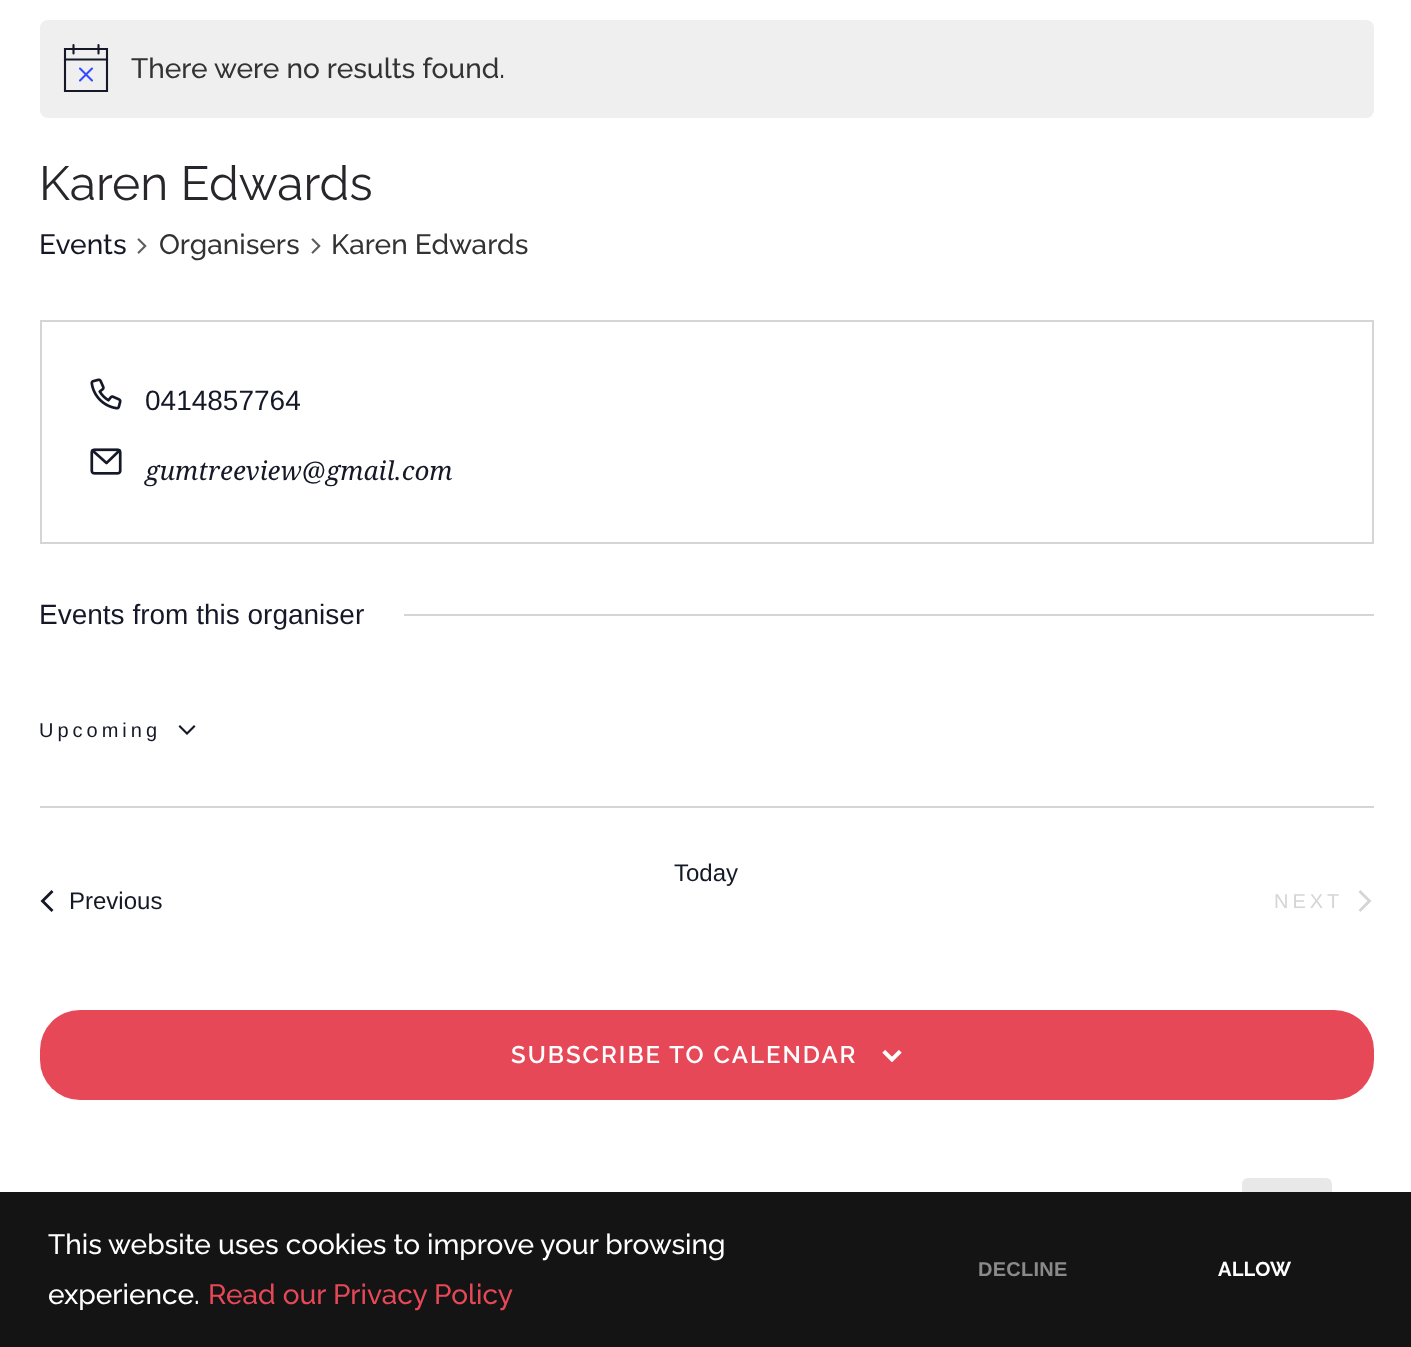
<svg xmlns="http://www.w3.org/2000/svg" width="1411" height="1347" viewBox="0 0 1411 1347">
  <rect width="100%" height="100%" fill="rgb(255,255,255)"/>
  <rect x="40" y="20" width="1334" height="98" rx="8" fill="rgb(239,239,240)"/>
  <path d="M65 49H107V91H65Z" fill="none" stroke="rgb(20,24,39)" stroke-width="2.1"/>
  <path d="M80 68.5L92 80.5M92 68.5L80 80.5" fill="none" stroke="rgb(51,74,255)" stroke-width="2.1" stroke-linecap="round"/>
  <path d="M73.5 45V53.5M98.5 45V53.5" fill="none" stroke="rgb(20,24,39)" stroke-width="2.1" stroke-linecap="round"/>
  <path d="M65 59.5H107" fill="none" stroke="rgb(20,24,39)" stroke-width="2.1" stroke-linecap="square"/>
  <text x="131" y="78" font-family="Raleway" font-size="28" font-weight="500" fill="rgb(51,51,51)">There were no results found.</text>
  <text x="39" y="200" font-family="Raleway" font-size="48" fill="rgb(40,38,43)">Karen Edwards</text>
  <text x="39" y="254" font-family="Raleway" font-size="28" font-weight="500" fill="rgb(20,24,39)">Events</text>
  <image x="137" y="238" width="10" height="16" href="pic1.png"/>
  <text x="159" y="254" font-family="Raleway" font-size="28" font-weight="500" fill="rgb(51,51,51)">Organisers</text>
  <image x="311" y="238" width="10" height="16" href="pic1.png"/>
  <text x="331" y="254" font-family="Raleway" font-size="28" font-weight="500" fill="rgb(51,51,51)">Karen Edwards</text>
  <rect x="41" y="321" width="1332" height="222" fill="none" stroke="rgb(213,213,213)" stroke-width="2"/>
  <image x="90" y="378" width="32" height="32" href="pic2.png"/>
  <text x="145" y="410" font-family="Liberation Sans" font-size="28" fill="rgb(20,24,39)">0414857764</text>
  <image x="90" y="448" width="32" height="27" href="pic3.png"/>
  <text x="145" y="480" font-family="Droid Serif" font-size="26" font-style="italic" fill="rgb(20,24,39)">gumtreeview@gmail.com</text>
  <text x="39" y="624" font-family="Liberation Sans" font-size="28" fill="rgb(20,24,39)">Events from this organiser</text>
  <rect x="404" y="614" width="970" height="2" fill="rgb(213,213,213)"/>
  <text x="39" y="737" font-family="Liberation Sans" font-size="20" letter-spacing="4" fill="rgb(20,24,39)">Upcoming</text>
  <path d="M180 725L187 732L194 725L195.5 726.5L187 735L178.5 726.5Z" fill="rgb(20,24,39)" fill-rule="evenodd"/>
  <rect x="40" y="806" width="1334" height="2" fill="rgb(213,213,213)"/>
  <text x="674" y="881" font-family="Liberation Sans" font-size="24" fill="rgb(20,24,39)">Today</text>
  <path d="M53.5 910L51.5 912L40.5 901L51.5 890L53.5 892L44.5 901Z" fill="rgb(20,24,39)"/>
  <text x="69" y="909" font-family="Liberation Sans" font-size="24" fill="rgb(20,24,39)">Previous</text>
  <text x="1274" y="908" font-family="Liberation Sans" font-size="20" letter-spacing="4" fill="rgb(213,213,213)">NEXT</text>
  <path d="M1358.5 892L1360.5 890L1371.5 901L1360.5 912L1358.5 910L1367.5 901Z" fill="rgb(213,213,213)"/>
  <rect x="40" y="1010" width="1334" height="90" rx="40" fill="rgb(231,72,88)"/>
  <text x="511" y="1063" font-family="Raleway" font-size="24" font-weight="600" letter-spacing="2" fill="rgb(255,255,255)">SUBSCRIBE TO CALENDAR</text>
  <image x="882" y="1050" width="20" height="12" href="pic4.png"/>
  <rect x="1242" y="1178" width="90" height="90" rx="6" fill="rgb(232,232,232)"/>
  <rect x="0" y="1192" width="1411" height="155" fill="rgb(20,20,20)"/>
  <g font-family="Raleway" font-size="28" font-weight="500" fill="rgb(255,255,255)">
    <text>
      <tspan x="48" y="1254">This website uses cookies to improve your browsing</tspan>
      <tspan x="48" y="1304">experience.</tspan>
    </text>
  </g>
  <text x="208" y="1304" font-family="Raleway" font-size="28" font-weight="500" fill="rgb(231,72,88)">Read our Privacy Policy</text>
  <text x="978" y="1276" font-family="Liberation Sans" font-size="20" font-weight="bold" letter-spacing="0.25" fill="rgb(138,138,138)">DECLINE</text>
  <text x="1218" y="1276" font-family="Raleway" font-size="20" font-weight="bold" letter-spacing="0.25" fill="rgb(255,255,255)">ALLOW</text>
</svg>
